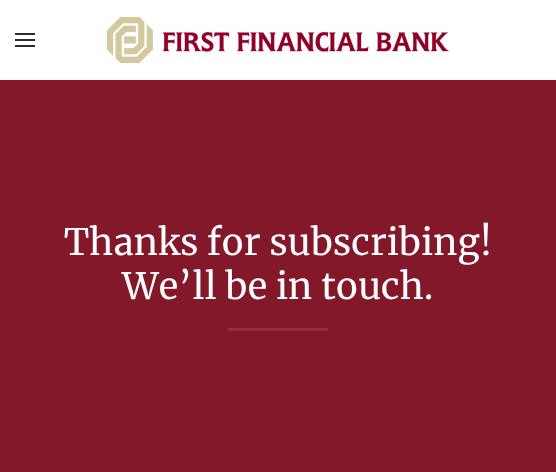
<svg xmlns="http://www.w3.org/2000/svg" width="556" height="472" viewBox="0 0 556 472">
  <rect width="100%" height="100%" fill="rgb(255,255,255)"/>
  <rect x="15" y="33" width="20" height="2" fill="rgb(45,46,51)"/>
  <rect x="15" y="39" width="20" height="2" fill="rgb(45,46,51)"/>
  <rect x="15" y="45" width="20" height="2" fill="rgb(45,46,51)"/>
  <image x="107" y="17" width="342" height="46" href="pic1.png"/>
  <rect x="0" y="80" width="556" height="392" fill="rgb(131,24,42)"/>
  <g font-family="Merriweather" font-size="36.5" fill="rgb(255,255,255)">
    <text x="64" y="255">Thanks for subscribing!</text>
    <text x="122" y="299">We’ll be in touch.</text>
  </g>
  <rect x="228" y="328" width="100" height="3" fill="rgb(143,47,63)"/>
</svg>
